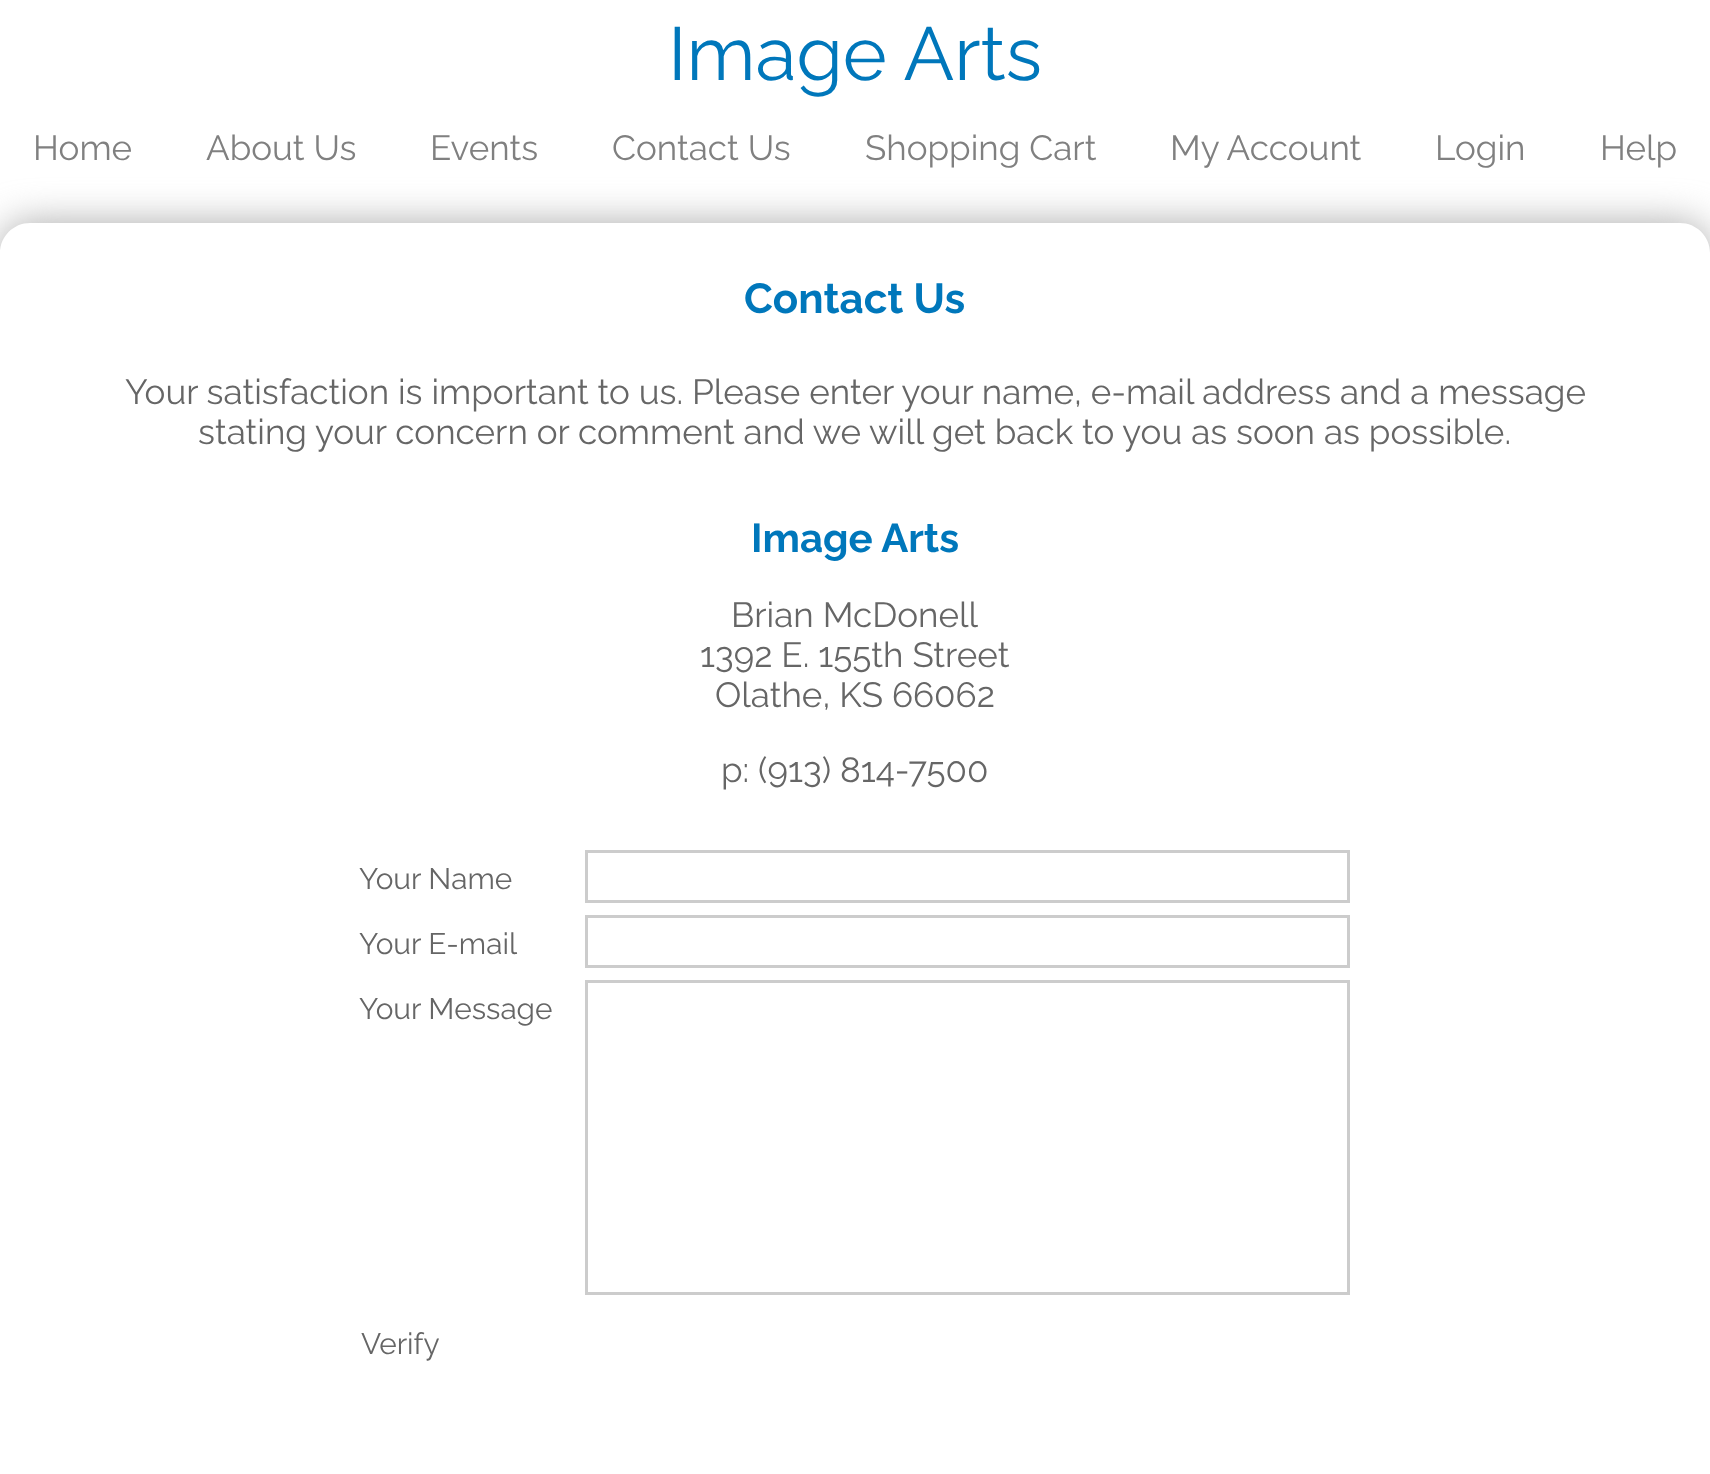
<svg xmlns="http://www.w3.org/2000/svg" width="1710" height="1474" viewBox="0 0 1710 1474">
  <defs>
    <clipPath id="clip1"><path d="M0 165H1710V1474H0ZM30 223H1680C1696.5 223 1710 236.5 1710 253V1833C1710 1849.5 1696.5 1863 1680 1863H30C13.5 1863 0 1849.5 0 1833V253C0 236.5 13.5 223 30 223Z" clip-rule="evenodd"/></clipPath>
  </defs>
  <rect width="100%" height="100%" fill="rgb(255,255,255)"/>
  <text x="668" y="80" font-family="Raleway" font-size="75" fill="rgb(0,119,187)">Image Arts</text>
  <g font-family="Raleway" font-size="35" fill="rgb(128,128,128)">
    <text x="33" y="160">Home</text>
    <text x="206" y="160">About Us</text>
    <text x="430" y="160">Events</text>
    <text x="612" y="160">Contact Us</text>
  </g>
  <g clip-path="url(#clip1)">
    <rect x="0" y="223" width="1710" height="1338" rx="30" fill="rgb(170,170,170)" filter="blur(19px)"/>
  </g>
  <g font-family="Raleway" font-size="35" fill="rgb(128,128,128)">
    <text x="865" y="160">Shopping Cart</text>
    <text x="1170" y="160">My Account</text>
    <text x="1435" y="160">Login</text>
    <text x="1600" y="160">Help</text>
  </g>
  <text x="744" y="313" font-family="Raleway" font-size="42" font-weight="bold" fill="rgb(0,119,187)">Contact Us</text>
  <g font-family="Raleway" font-size="35" fill="rgb(102,102,102)">
    <text x="125" y="404">Your satisfaction is important to us. Please enter your name, e-mail address and a message</text>
    <text x="198" y="444">stating your concern or comment and we will get back to you as soon as possible.</text>
  </g>
  <text x="751" y="552" font-family="Raleway" font-size="40.25" font-weight="bold" fill="rgb(0,119,187)">Image Arts</text>
  <g font-family="Raleway" font-size="35" fill="rgb(102,102,102)">
    <text x="731" y="627">Brian McDonell</text>
    <text x="700" y="667">1392 E. 155th Street</text>
    <text x="715" y="707">Olathe, KS 66062</text>
    <text x="721" y="782">p: (913) 814-7500</text>
  </g>
  <text x="359" y="889" font-family="Raleway" font-size="29.75" fill="rgb(102,102,102)">Your Name</text>
  <rect x="586.5" y="851.5" width="762" height="50" fill="none" stroke="rgb(204,204,204)" stroke-width="3"/>
  <text x="359" y="954" font-family="Raleway" font-size="29.75" fill="rgb(102,102,102)">Your E-mail</text>
  <rect x="586.5" y="916.5" width="762" height="50" fill="none" stroke="rgb(204,204,204)" stroke-width="3"/>
  <text x="359" y="1019" font-family="Raleway" font-size="29.75" fill="rgb(102,102,102)">Your Message</text>
  <rect x="586.5" y="981.5" width="762" height="312" fill="none" stroke="rgb(204,204,204)" stroke-width="3"/>
  <text x="361" y="1354" font-family="Raleway" font-size="29.75" fill="rgb(102,102,102)">Verify</text>
</svg>
